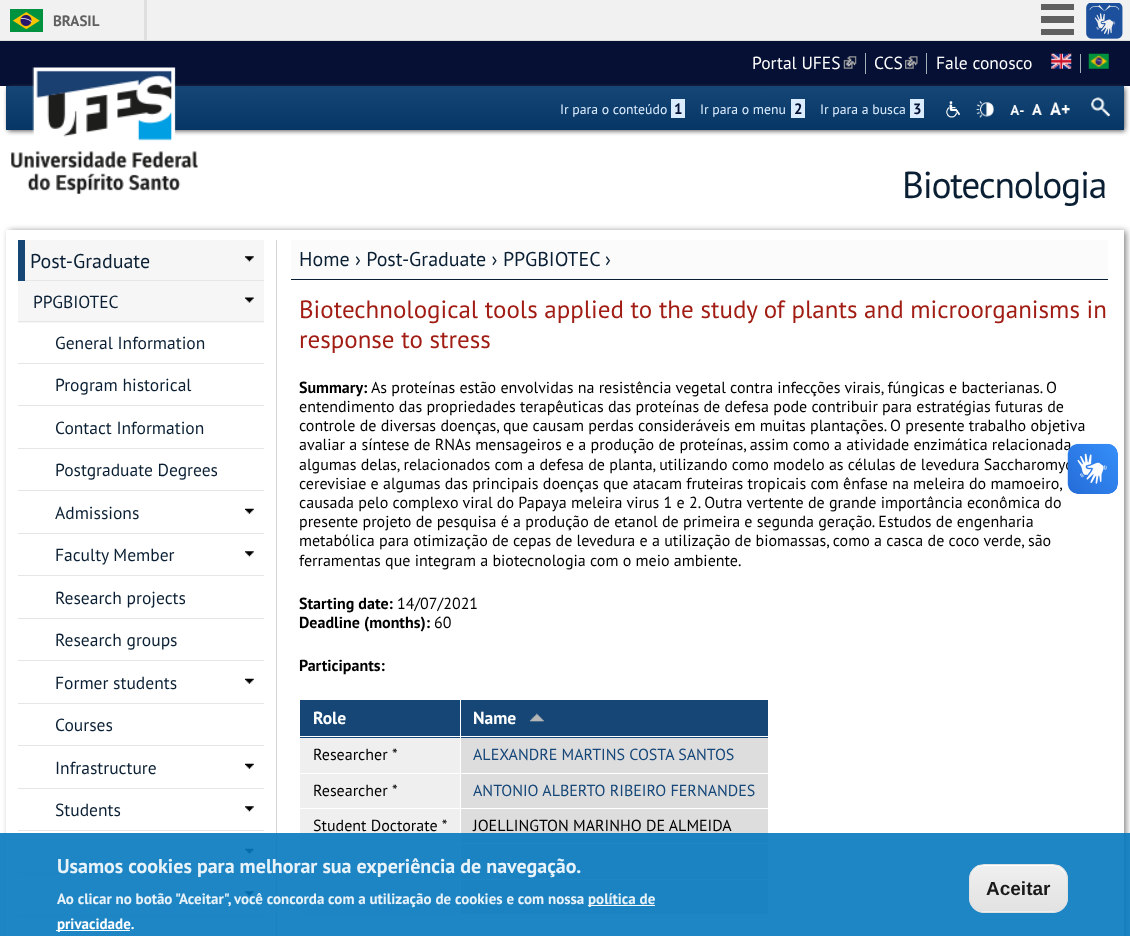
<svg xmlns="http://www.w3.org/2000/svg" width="1130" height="936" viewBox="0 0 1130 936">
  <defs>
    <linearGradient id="g1" gradientUnits="userSpaceOnUse" x1="565" y1="86" x2="565" y2="130"><stop offset="0" stop-color="rgb(21,70,117)"/><stop offset="1" stop-color="rgb(5,54,102)"/></linearGradient>
    <clipPath id="clip1"><rect x="969" y="864" width="99" height="49" rx="15"/></clipPath>
    <linearGradient id="g2" gradientUnits="userSpaceOnUse" x1="1018" y1="865" x2="1018" y2="911"><stop offset="0.05" stop-color="rgb(239,239,239)"/><stop offset="1" stop-color="rgb(226,226,226)"/></linearGradient>
    <linearGradient id="g3" gradientUnits="userSpaceOnUse" x1="1018" y1="911" x2="1018" y2="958"><stop offset="0.05" stop-color="rgb(239,239,239)"/><stop offset="1" stop-color="rgb(226,226,226)"/></linearGradient>
  </defs>
  <rect width="100%" height="100%" fill="rgb(255,255,255)"/>
  <rect x="0" y="0" width="1130" height="40" fill="rgb(241,241,241)"/>
  <rect x="0" y="40" width="1130" height="1" fill="rgb(223,223,223)"/>
  <rect x="144" y="0" width="3" height="40" fill="rgb(223,223,223)"/>
  <image x="10" y="9" width="33" height="23" href="pic1.png"/>
  <text x="53" y="26" font-family="PT Sans" font-size="15" font-weight="bold" fill="rgb(96,96,96)">BRASIL</text>
  <rect x="1041" y="4" width="33" height="6" fill="rgb(96,96,96)"/>
  <rect x="1041" y="16" width="33" height="7" fill="rgb(96,96,96)"/>
  <rect x="1041" y="29" width="33" height="6" fill="rgb(96,96,96)"/>
  <image x="1086" y="3" width="37" height="36" href="pic2.png"/>
  <rect x="0" y="41" width="1130" height="45" fill="rgb(5,16,52)"/>
  <rect x="865" y="53" width="1" height="21" fill="rgb(164,174,185)"/>
  <text x="752" y="69" font-family="PT Sans" font-size="17.5" fill="rgb(255,255,255)">Portal UFES</text>
  <image x="843" y="56" width="14" height="13" href="pic3.png"/>
  <rect x="926" y="53" width="1" height="21" fill="rgb(164,174,185)"/>
  <text x="874" y="69" font-family="PT Sans" font-size="17.5" fill="rgb(255,255,255)">CCS</text>
  <image x="905" y="56" width="13" height="13" href="pic4.png"/>
  <text x="936" y="69" font-family="PT Sans" font-size="17.5" fill="rgb(255,255,255)">Fale conosco</text>
  <rect x="1080" y="54" width="1" height="19" fill="rgb(164,174,185)"/>
  <image x="1051" y="53" width="21" height="16" href="pic5.png"/>
  <image x="1088" y="53" width="21" height="16" href="pic6.png"/>
  <rect x="8" y="88" width="1117" height="43" fill="rgb(89,89,89)" filter="blur(2.5px)"/>
  <rect x="6" y="86" width="1118" height="44" fill="url(#g1)"/>
  <image x="11" y="67" width="187" height="127" href="pic7.png"/>
  <text x="560" y="114" font-family="PT Sans" font-size="13.75" fill="rgb(220,236,255)">Ir para o conteúdo</text>
  <rect x="671" y="99" width="14" height="19" fill="rgb(220,236,255)"/>
  <text x="674" y="114" font-family="PT Sans" font-size="15" font-weight="bold" fill="rgb(5,16,52)">1</text>
  <text x="700" y="114" font-family="PT Sans" font-size="13.75" fill="rgb(220,236,255)">Ir para o menu</text>
  <rect x="791" y="99" width="14" height="19" fill="rgb(220,236,255)"/>
  <text x="794" y="114" font-family="PT Sans" font-size="15" font-weight="bold" fill="rgb(5,16,52)">2</text>
  <text x="820" y="114" font-family="PT Sans" font-size="13.75" fill="rgb(220,236,255)">Ir para a busca</text>
  <rect x="910" y="99" width="14" height="19" fill="rgb(220,236,255)"/>
  <text x="913" y="114" font-family="PT Sans" font-size="15" font-weight="bold" fill="rgb(5,16,52)">3</text>
  <image x="946" y="101" width="14" height="17" href="pic8.png"/>
  <image x="976" y="101" width="18" height="17" href="pic9.png"/>
  <image x="1010" y="105" width="15" height="10" href="pic10.png"/>
  <image x="1031" y="104" width="12" height="11" href="pic11.png"/>
  <image x="1049" y="102" width="21" height="13" href="pic12.png"/>
  <image x="1091" y="97" width="20" height="20" href="pic13.png"/>
  <text x="902" y="198" font-family="PT Sans" font-size="37.5" letter-spacing="-1.25" fill="rgb(10,31,51)">Biotecnologia</text>
  <rect x="9" y="231" width="1117" height="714" fill="rgb(128,128,128)" filter="blur(3px)"/>
  <rect x="6" y="230" width="1118" height="706" fill="rgb(255,255,255)"/>
  <rect x="18" y="240" width="7" height="41" fill="rgb(21,70,118)"/>
  <rect x="25" y="240" width="239" height="40" fill="rgb(246,246,246)"/>
  <image x="245" y="256" width="9" height="6" href="pic14.png"/>
  <rect x="25" y="280" width="239" height="1" fill="rgb(230,230,230)"/>
  <text x="30" y="268" font-family="PT Sans" font-size="20" fill="rgb(10,31,51)">Post-Graduate</text>
  <rect x="18" y="281" width="246" height="42" fill="rgb(246,246,246)"/>
  <image x="245" y="297" width="9" height="6" href="pic15.png"/>
  <rect x="18" y="321" width="246" height="1" fill="rgb(230,230,230)"/>
  <text x="33" y="308" font-family="PT Sans" font-size="17.5" fill="rgb(10,31,51)">PPGBIOTEC</text>
  <rect x="18" y="363" width="246" height="1" fill="rgb(230,230,230)"/>
  <text x="55" y="349" font-family="PT Sans" font-size="17.5" fill="rgb(10,31,51)">General Information</text>
  <rect x="18" y="405" width="246" height="1" fill="rgb(230,230,230)"/>
  <text x="55" y="391" font-family="PT Sans" font-size="17.5" fill="rgb(10,31,51)">Program historical</text>
  <rect x="18" y="448" width="246" height="1" fill="rgb(230,230,230)"/>
  <text x="55" y="434" font-family="PT Sans" font-size="17.5" fill="rgb(10,31,51)">Contact Information</text>
  <rect x="18" y="490" width="246" height="1" fill="rgb(230,230,230)"/>
  <text x="55" y="476" font-family="PT Sans" font-size="17.5" fill="rgb(10,31,51)">Postgraduate Degrees</text>
  <image x="245" y="508" width="9" height="6" href="pic16.png"/>
  <rect x="18" y="533" width="246" height="1" fill="rgb(230,230,230)"/>
  <text x="55" y="519" font-family="PT Sans" font-size="17.5" fill="rgb(10,31,51)">Admissions</text>
  <image x="245" y="551" width="9" height="6" href="pic17.png"/>
  <rect x="18" y="575" width="246" height="1" fill="rgb(230,230,230)"/>
  <text x="55" y="561" font-family="PT Sans" font-size="17.5" fill="rgb(10,31,51)">Faculty Member</text>
  <rect x="18" y="618" width="246" height="1" fill="rgb(230,230,230)"/>
  <text x="55" y="604" font-family="PT Sans" font-size="17.5" fill="rgb(10,31,51)">Research projects</text>
  <rect x="18" y="660" width="246" height="1" fill="rgb(230,230,230)"/>
  <text x="55" y="646" font-family="PT Sans" font-size="17.5" fill="rgb(10,31,51)">Research groups</text>
  <image x="245" y="678" width="9" height="6" href="pic16.png"/>
  <rect x="18" y="703" width="246" height="1" fill="rgb(230,230,230)"/>
  <text x="55" y="689" font-family="PT Sans" font-size="17.5" fill="rgb(10,31,51)">Former students</text>
  <rect x="18" y="745" width="246" height="1" fill="rgb(230,230,230)"/>
  <text x="55" y="731" font-family="PT Sans" font-size="17.5" fill="rgb(10,31,51)">Courses</text>
  <image x="245" y="763" width="9" height="6" href="pic16.png"/>
  <rect x="18" y="788" width="246" height="1" fill="rgb(230,230,230)"/>
  <text x="55" y="774" font-family="PT Sans" font-size="17.5" fill="rgb(10,31,51)">Infrastructure</text>
  <image x="245" y="806" width="9" height="6" href="pic17.png"/>
  <rect x="18" y="830" width="246" height="1" fill="rgb(230,230,230)"/>
  <text x="55" y="816" font-family="PT Sans" font-size="17.5" fill="rgb(10,31,51)">Students</text>
  <image x="245" y="848" width="9" height="6" href="pic16.png"/>
  <rect x="18" y="873" width="246" height="1" fill="rgb(230,230,230)"/>
  <image x="245" y="891" width="9" height="6" href="pic17.png"/>
  <rect x="18" y="915" width="246" height="1" fill="rgb(230,230,230)"/>
  <rect x="276" y="240" width="1" height="696" fill="rgb(214,214,214)"/>
  <rect x="291" y="240" width="817" height="39" fill="rgb(251,251,251)"/>
  <rect x="291" y="279" width="817" height="1" fill="rgb(10,31,51)"/>
  <g font-family="PT Sans" font-size="20" fill="rgb(10,31,51)">
    <text x="299" y="266">Home › Post-Graduate › PPGBIOTEC</text>
    <text x="605" y="266">›</text>
  </g>
  <g font-family="PT Sans" font-size="25" fill="rgb(161,29,20)">
    <text>
      <tspan x="299" y="318">Biotechnological tools applied to the study of plants and microorganisms in</tspan>
      <tspan x="299" y="348">response to stress</tspan>
    </text>
  </g>
  <text x="299" y="393" font-family="PT Sans" font-size="16" font-weight="bold" fill="rgb(0,0,0)">Summary:</text>
  <g font-family="PT Sans" font-size="16" fill="rgb(0,0,0)">
    <text x="371" y="393">As proteínas estão envolvidas na resistência vegetal contra infecções virais, fúngicas e bacterianas. O</text>
    <text>
      <tspan x="299" y="412">entendimento das propriedades terapêuticas das proteínas de defesa pode contribuir para estratégias futuras de</tspan>
      <tspan x="299" y="431">controle de diversas doenças, que causam perdas consideráveis em muitas plantações. O presente trabalho objetiva</tspan>
      <tspan x="299" y="450">avaliar a síntese de RNAs mensageiros e a produção de proteínas, assim como a atividade enzimática relacionada</tspan>
      <tspan x="299" y="470">algumas delas, relacionados com a defesa de planta, utilizando como modelo as células de levedura Saccharomyc</tspan>
      <tspan x="299" y="489">cerevisiae e algumas das principais doenças que atacam fruteiras tropicais com ênfase na meleira do mamoeiro,</tspan>
      <tspan x="299" y="508">causada pelo complexo viral do Papaya meleira virus 1 e 2. Outra vertente de grande importância econômica do</tspan>
      <tspan x="299" y="527">presente projeto de pesquisa é a produção de etanol de primeira e segunda geração. Estudos de engenharia</tspan>
      <tspan x="299" y="546">metabólica para otimização de cepas de levedura e a utilização de biomassas, como a casca de coco verde, são</tspan>
      <tspan x="299" y="566">ferramentas que integram a biotecnologia com o meio ambiente.</tspan>
    </text>
  </g>
  <text x="299" y="609" font-family="PT Sans" font-size="16" font-weight="bold" fill="rgb(0,0,0)">Starting date:</text>
  <text x="397" y="609" font-family="PT Sans" font-size="16" fill="rgb(0,0,0)">14/07/2021</text>
  <text x="299" y="628" font-family="PT Sans" font-size="16" font-weight="bold" fill="rgb(0,0,0)">Deadline (months):</text>
  <text x="434" y="628" font-family="PT Sans" font-size="16" fill="rgb(0,0,0)">60</text>
  <text x="299" y="671" font-family="PT Sans" font-size="16" font-weight="bold" fill="rgb(0,0,0)">Participants:</text>
  <rect x="300" y="700" width="160" height="38" fill="rgb(21,70,118)"/>
  <text x="313" y="724" font-family="PT Sans" font-size="17.5" font-weight="bold" fill="rgb(255,255,255)">Role</text>
  <rect x="461" y="700" width="307" height="38" fill="rgb(21,70,118)"/>
  <text x="473" y="724" font-family="PT Sans" font-size="17.5" font-weight="bold" fill="rgb(255,255,255)">Name</text>
  <image x="529" y="713" width="15" height="9" href="pic18.png"/>
  <rect x="300" y="738" width="160" height="35" fill="rgb(239,239,239)"/>
  <text x="313" y="760" font-family="PT Sans" font-size="16" fill="rgb(0,0,0)">Researcher *</text>
  <rect x="461" y="738" width="307" height="35" fill="rgb(221,221,221)"/>
  <rect x="299" y="736" width="470" height="1" fill="rgb(255,255,255)"/>
  <text x="473" y="760" font-family="PT Sans" font-size="16" fill="rgb(21,70,120)">ALEXANDRE MARTINS COSTA SANTOS</text>
  <rect x="300" y="774" width="160" height="34" fill="rgb(239,239,239)"/>
  <text x="313" y="796" font-family="PT Sans" font-size="16" fill="rgb(0,0,0)">Researcher *</text>
  <rect x="461" y="774" width="307" height="34" fill="rgb(221,221,221)"/>
  <text x="473" y="796" font-family="PT Sans" font-size="16" fill="rgb(21,70,120)">ANTONIO ALBERTO RIBEIRO FERNANDES</text>
  <rect x="300" y="809" width="160" height="34" fill="rgb(239,239,239)"/>
  <text x="313" y="831" font-family="PT Sans" font-size="16" fill="rgb(0,0,0)">Student Doctorate *</text>
  <rect x="461" y="809" width="307" height="34" fill="rgb(221,221,221)"/>
  <text x="473" y="831" font-family="PT Sans" font-size="16" fill="rgb(0,0,0)">JOELLINGTON MARINHO DE ALMEIDA</text>
  <rect x="300" y="844" width="160" height="35" fill="rgb(239,239,239)"/>
  <rect x="461" y="844" width="307" height="35" fill="rgb(221,221,221)"/>
  <rect x="300" y="880" width="160" height="34" fill="rgb(239,239,239)"/>
  <rect x="461" y="880" width="307" height="34" fill="rgb(221,221,221)"/>
  <image x="1067" y="443" width="51" height="51" href="pic19.png"/>
  <image x="1068" y="444" width="50" height="50" href="pic20.png"/>
  <rect x="0" y="833" width="1130" height="103" fill="rgba(7,121,191,0.9)"/>
  <text x="57" y="873" font-family="PT Sans" font-size="20" font-weight="bold" fill="rgb(232,243,249)">Usamos cookies para melhorar sua experiência de navegação.</text>
  <text x="57" y="904" font-family="PT Sans" font-size="15" font-weight="bold" fill="rgb(232,243,249)">Ao clicar no botão "Aceitar", você concorda com a utilização de cookies e com nossa</text>
  <rect x="588" y="905" width="67" height="1" fill="rgb(252,252,252)"/>
  <text x="588" y="904" font-family="PT Sans" font-size="15" font-weight="bold" fill="rgb(232,243,249)">política de</text>
  <rect x="56" y="930" width="74" height="1" fill="rgb(255,255,255)"/>
  <text x="57" y="929" font-family="PT Sans" font-size="15" font-weight="bold" fill="rgb(255,255,255)">privacidade.</text>
  <g clip-path="url(#clip1)">
    <rect x="969" y="865" width="99" height="46" fill="url(#g2)"/>
    <rect x="969" y="911" width="99" height="2" fill="url(#g3)"/>
  </g>
  <path d="M984 866H1052C1060 866 1066 872 1066 880C1066 864 1053 865 1041 865H995C983 865 970 864 970 880C970 872 976 866 984 866Z" fill="rgb(255,255,255)"/>
  <rect x="969.5" y="864.5" width="98" height="48" rx="14.5" fill="none" stroke="rgb(224,224,224)"/>
  <text x="986" y="895" font-family="Liberation Sans" font-size="19" font-weight="bold" fill="rgb(26,26,26)">Aceitar</text>
</svg>
